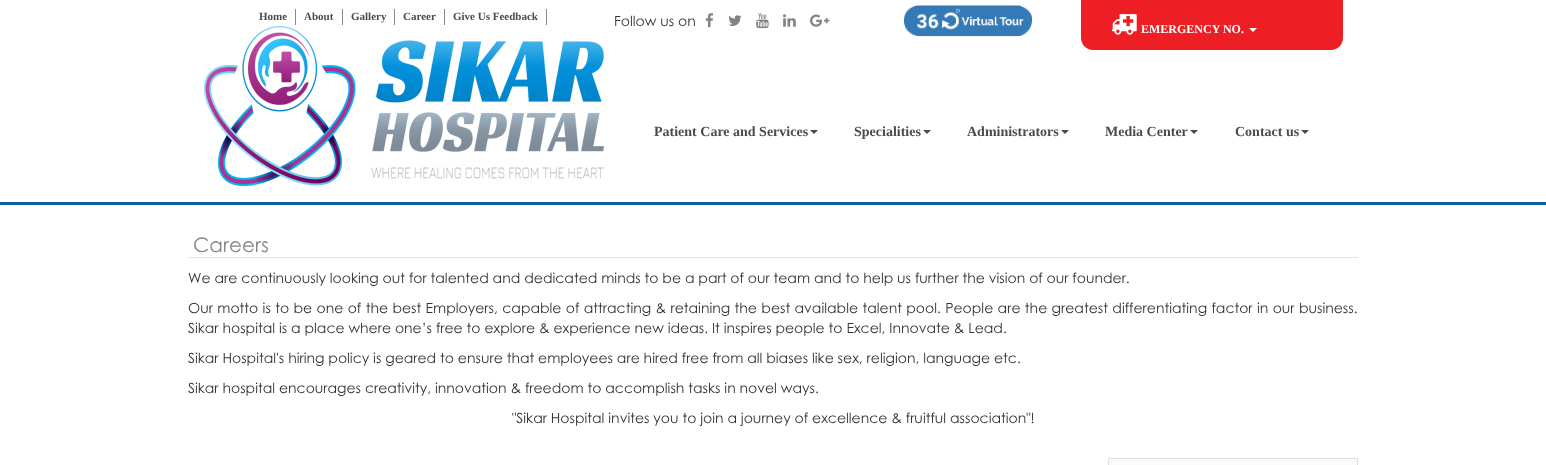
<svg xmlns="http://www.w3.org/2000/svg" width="1546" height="465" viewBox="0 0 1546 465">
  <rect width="100%" height="100%" fill="rgb(255,255,255)"/>
  <rect x="295" y="9" width="1" height="16" fill="rgb(137,137,137)"/>
  <text x="259" y="20" font-family="Liberation Serif" font-size="11" font-weight="bold" fill="rgb(75,75,75)">Home</text>
  <rect x="342" y="9" width="1" height="16" fill="rgb(137,137,137)"/>
  <text x="304" y="20" font-family="Liberation Serif" font-size="11" font-weight="bold" fill="rgb(75,75,75)">About</text>
  <rect x="394" y="9" width="1" height="16" fill="rgb(137,137,137)"/>
  <text x="351" y="20" font-family="Liberation Serif" font-size="11" font-weight="bold" fill="rgb(75,75,75)">Gallery</text>
  <rect x="444" y="9" width="1" height="16" fill="rgb(137,137,137)"/>
  <text x="403" y="20" font-family="Liberation Serif" font-size="11" font-weight="bold" fill="rgb(75,75,75)">Career</text>
  <rect x="546" y="9" width="1" height="16" fill="rgb(137,137,137)"/>
  <text x="453" y="20" font-family="Liberation Serif" font-size="11" font-weight="bold" fill="rgb(75,75,75)">Give Us Feedback</text>
  <text x="614" y="26" font-family="Century Gothic" font-size="14" fill="rgb(51,51,51)">Follow us on</text>
  <image x="705" y="13" width="8" height="15" href="pic1.png"/>
  <image x="728" y="15" width="14" height="11" href="pic2.png"/>
  <image x="756" y="13" width="13" height="16" href="pic3.png"/>
  <image x="783" y="14" width="13" height="13" href="pic4.png"/>
  <image x="810" y="14" width="20" height="13" href="pic5.png"/>
  <image x="904" y="5" width="129" height="32" href="pic6.png"/>
  <path d="M1081 0H1343V38C1343 44.5 1337.5 50 1331 50H1093C1086.5 50 1081 44.5 1081 38Z" fill="rgb(237,31,36)"/>
  <image x="1111" y="14" width="26" height="21" href="pic7.png"/>
  <text x="1141" y="33" font-family="Liberation Serif" font-size="12" font-weight="bold" fill="rgb(255,255,255)">EMERGENCY NO.</text>
  <path d="M1249 28H1257L1253 32Z" fill="rgb(255,255,255)"/>
  <rect x="0" y="202" width="1546" height="3" fill="rgb(13,98,157)"/>
  <image x="204" y="26" width="400" height="160" href="pic8.png"/>
  <text x="654" y="136" font-family="Liberation Serif" font-size="14" font-weight="bold" fill="rgb(75,75,75)">Patient Care and Services</text>
  <path d="M810 130H818L814 134Z" fill="rgb(75,75,75)"/>
  <text x="854" y="136" font-family="Liberation Serif" font-size="14" font-weight="bold" fill="rgb(75,75,75)">Specialities</text>
  <path d="M923 130H931L927 134Z" fill="rgb(75,75,75)"/>
  <text x="967" y="136" font-family="Liberation Serif" font-size="14" font-weight="bold" fill="rgb(75,75,75)">Administrators</text>
  <path d="M1061 130H1069L1065 134Z" fill="rgb(75,75,75)"/>
  <text x="1105" y="136" font-family="Liberation Serif" font-size="14" font-weight="bold" fill="rgb(75,75,75)">Media Center</text>
  <path d="M1190 130H1198L1194 134Z" fill="rgb(75,75,75)"/>
  <text x="1235" y="136" font-family="Liberation Serif" font-size="14" font-weight="bold" fill="rgb(75,75,75)">Contact us</text>
  <path d="M1301 130H1309L1305 134Z" fill="rgb(75,75,75)"/>
  <rect x="188" y="257" width="1170" height="1" fill="rgb(223,232,233)"/>
  <text x="193" y="252" font-family="Century Gothic" font-size="20" fill="rgb(134,134,134)">Careers</text>
  <g font-family="Century Gothic" font-size="14" fill="rgb(51,51,51)">
    <text x="188" y="283">We are continuously looking out for talented and dedicated minds to be a part of our team and to help us further the vision of our founder.</text>
    <text>
      <tspan x="188" y="313" word-spacing="0.5">Our motto is to be one of the best Employers, capable of attracting &amp; retaining the best available talent pool. People are the greatest differentiating factor in our business.</tspan>
      <tspan x="188" y="333">Sikar hospital is a place where one’s free to explore &amp; experience new ideas. It inspires people to Excel, Innovate &amp; Lead.</tspan>
    </text>
    <text x="188" y="363">Sikar Hospital's hiring policy is geared to ensure that employees are hired free from all biases like sex, religion, language etc.</text>
    <text x="188" y="393">Sikar hospital encourages creativity, innovation &amp; freedom to accomplish tasks in novel ways.</text>
    <text x="512" y="423">"Sikar Hospital invites you to join a journey of excellence &amp; fruitful association"!</text>
  </g>
  <rect x="1108.5" y="458.5" width="249" height="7" fill="rgb(250,250,250)" stroke="rgb(225,223,223)"/>
</svg>
